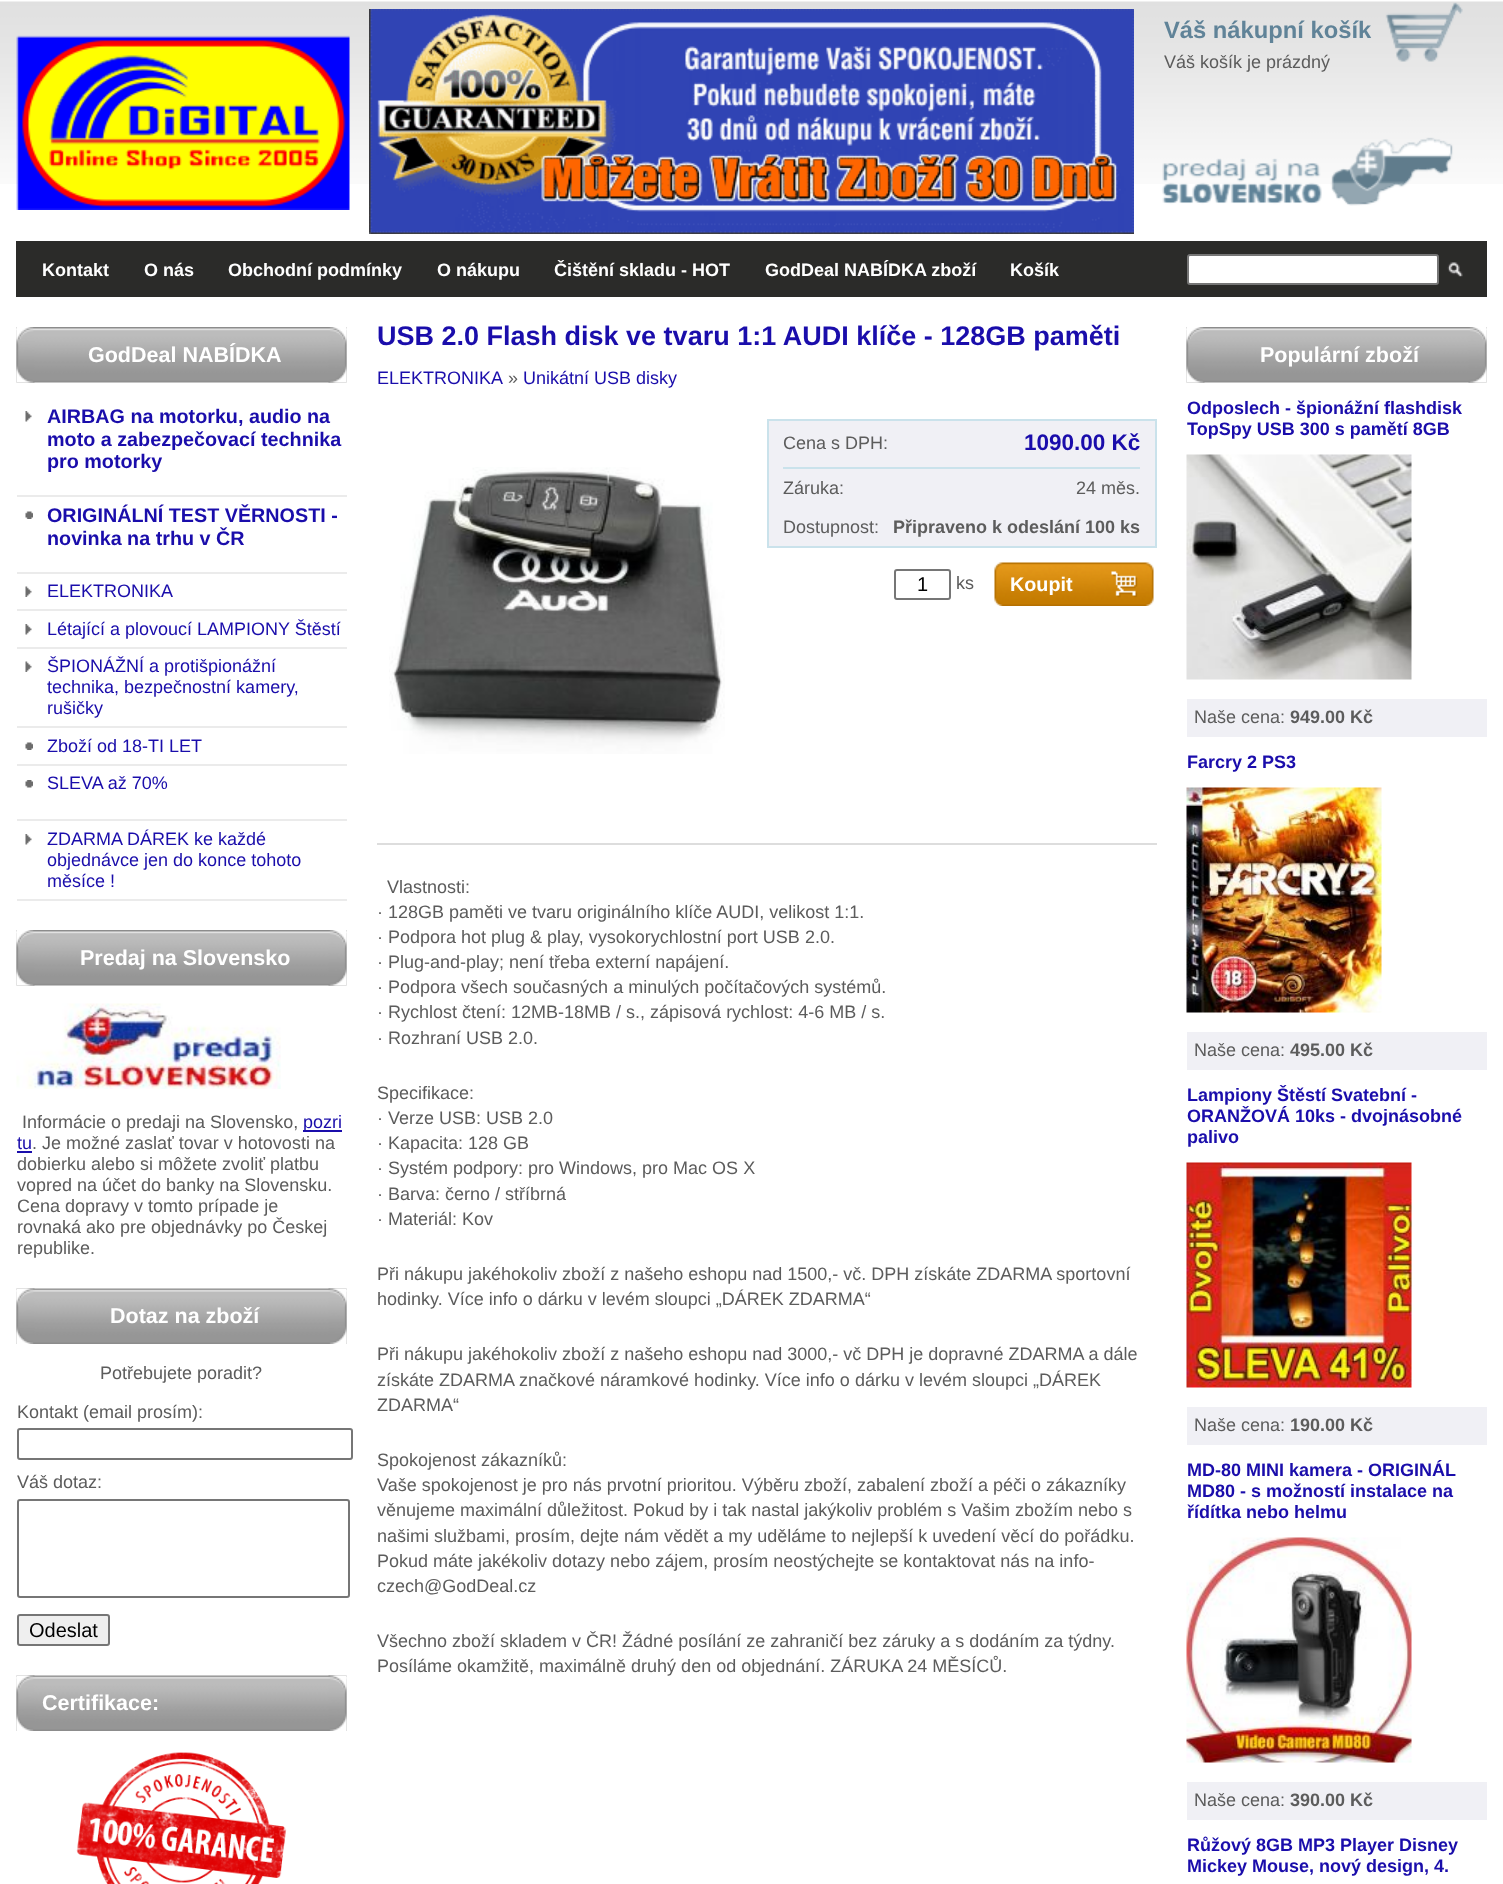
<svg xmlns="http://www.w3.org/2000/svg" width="1503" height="1884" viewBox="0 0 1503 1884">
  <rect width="100%" height="100%" fill="rgb(255,255,255)"/>
  <image x="0" y="1" width="1503" height="183" href="pic1.png"/>
  <image x="16" y="2" width="1447" height="208" href="pic2.png"/>
  <image x="369" y="9" width="765" height="225" href="pic3.png"/>
  <text x="1164" y="38" font-family="Liberation Sans" font-size="23.75" font-weight="bold" fill="rgb(96,131,152)">Váš nákupní košík</text>
  <text x="1164" y="68" font-family="Liberation Sans" font-size="18" fill="rgb(92,92,92)">Váš košík je prázdný</text>
  <rect x="16" y="241" width="1471" height="56" fill="rgb(43,43,41)"/>
  <g font-family="Liberation Sans" font-size="18" font-weight="bold" fill="rgb(255,255,255)">
    <text x="42" y="276">Kontakt</text>
    <text x="144" y="276">O nás</text>
    <text x="228" y="276">Obchodní podmínky</text>
    <text x="437" y="276">O nákupu</text>
    <text x="554" y="276">Čištění skladu - HOT</text>
    <text x="765" y="276">GodDeal NABÍDKA zboží</text>
    <text x="1010" y="276">Košík</text>
  </g>
  <rect x="1188" y="255" width="250" height="29" rx="2" fill="rgb(255,255,255)" stroke="rgb(118,118,118)" stroke-width="2"/>
  <image x="1447" y="262" width="16" height="15" href="pic4.png"/>
  <image x="16" y="327" width="331" height="56" href="pic5.png"/>
  <image x="16" y="327" width="19" height="56" href="pic6.png"/>
  <text x="88" y="362" font-family="Liberation Sans" font-size="21.5" font-weight="bold" fill="rgb(255,255,255)">GodDeal NABÍDKA</text>
  <image x="328" y="327" width="19" height="56" href="pic7.png"/>
  <image x="25" y="411" width="7" height="11" href="pic8.png"/>
  <rect x="17" y="495" width="330" height="2" fill="rgb(235,235,235)"/>
  <g font-family="Liberation Sans" font-size="19.75" font-weight="bold" fill="rgb(26,13,171)">
    <text>
      <tspan x="47" y="423">AIRBAG na motorku, audio na</tspan>
      <tspan x="47" y="446">moto a zabezpečovací technika</tspan>
      <tspan x="47" y="468">pro motorky</tspan>
    </text>
  </g>
  <image x="25" y="511" width="8" height="8" href="pic9.png"/>
  <rect x="17" y="572" width="330" height="2" fill="rgb(235,235,235)"/>
  <g font-family="Liberation Sans" font-size="19.75" font-weight="bold" fill="rgb(26,13,171)">
    <text>
      <tspan x="47" y="522">ORIGINÁLNÍ TEST VĚRNOSTI -</tspan>
      <tspan x="47" y="545">novinka na trhu v ČR</tspan>
    </text>
  </g>
  <image x="25" y="586" width="7" height="11" href="pic10.png"/>
  <rect x="17" y="609" width="330" height="2" fill="rgb(235,235,235)"/>
  <text x="47" y="597" font-family="Liberation Sans" font-size="18" fill="rgb(26,13,171)">ELEKTRONIKA</text>
  <image x="25" y="624" width="7" height="11" href="pic8.png"/>
  <rect x="17" y="647" width="330" height="2" fill="rgb(235,235,235)"/>
  <text x="47" y="635" font-family="Liberation Sans" font-size="18" fill="rgb(26,13,171)">Létající a plovoucí LAMPIONY Štěstí</text>
  <image x="25" y="661" width="7" height="11" href="pic10.png"/>
  <rect x="17" y="726" width="330" height="2" fill="rgb(235,235,235)"/>
  <g font-family="Liberation Sans" font-size="18" fill="rgb(26,13,171)">
    <text>
      <tspan x="47" y="672">ŠPIONÁŽNÍ a protišpionážní</tspan>
      <tspan x="47" y="693">technika, bezpečnostní kamery,</tspan>
      <tspan x="47" y="714">rušičky</tspan>
    </text>
  </g>
  <image x="25" y="742" width="8" height="8" href="pic9.png"/>
  <rect x="17" y="764" width="330" height="2" fill="rgb(235,235,235)"/>
  <text x="47" y="752" font-family="Liberation Sans" font-size="18" fill="rgb(26,13,171)">Zboží od 18-TI LET</text>
  <image x="25" y="780" width="8" height="8" href="pic11.png"/>
  <rect x="17" y="819" width="330" height="2" fill="rgb(235,235,235)"/>
  <text x="47" y="789" font-family="Liberation Sans" font-size="18" fill="rgb(26,13,171)">SLEVA až 70%</text>
  <image x="25" y="834" width="7" height="11" href="pic8.png"/>
  <rect x="17" y="899" width="330" height="2" fill="rgb(235,235,235)"/>
  <g font-family="Liberation Sans" font-size="18" fill="rgb(26,13,171)">
    <text>
      <tspan x="47" y="845">ZDARMA DÁREK ke každé</tspan>
      <tspan x="47" y="866">objednávce jen do konce tohoto</tspan>
      <tspan x="47" y="887">měsíce !</tspan>
    </text>
  </g>
  <image x="16" y="930" width="331" height="56" href="pic12.png"/>
  <image x="16" y="930" width="19" height="56" href="pic13.png"/>
  <text x="80" y="965" font-family="Liberation Sans" font-size="21.5" font-weight="bold" fill="rgb(255,255,255)">Predaj na Slovensko</text>
  <image x="328" y="930" width="19" height="56" href="pic14.png"/>
  <image x="16" y="1003" width="265" height="86" href="pic15.png"/>
  <text x="22" y="1128" font-family="Liberation Sans" font-size="18" fill="rgb(92,92,92)">Informácie o predaji na Slovensko,</text>
  <rect x="303" y="1130" width="39" height="2" fill="rgb(26,13,171)"/>
  <g font-family="Liberation Sans" font-size="18" fill="rgb(26,13,171)">
    <text x="303" y="1128">pozri</text>
    <text x="17" y="1149">tu</text>
  </g>
  <rect x="17" y="1151" width="15" height="2" fill="rgb(26,13,171)"/>
  <g font-family="Liberation Sans" font-size="18" fill="rgb(92,92,92)">
    <text x="32" y="1149">. Je možné zaslať tovar v hotovosti na</text>
    <text>
      <tspan x="17" y="1170">dobierku alebo si môžete zvoliť platbu</tspan>
      <tspan x="17" y="1191">vopred na účet do banky na Slovensku.</tspan>
      <tspan x="17" y="1212">Cena dopravy v tomto prípade je</tspan>
      <tspan x="17" y="1233">rovnaká ako pre objednávky po Českej</tspan>
      <tspan x="17" y="1254">republike.</tspan>
    </text>
  </g>
  <image x="16" y="1288" width="331" height="56" href="pic16.png"/>
  <image x="16" y="1288" width="19" height="56" href="pic17.png"/>
  <text x="110" y="1323" font-family="Liberation Sans" font-size="21.5" font-weight="bold" fill="rgb(255,255,255)">Dotaz na zboží</text>
  <image x="328" y="1288" width="19" height="56" href="pic18.png"/>
  <g font-family="Liberation Sans" font-size="18" fill="rgb(92,92,92)">
    <text x="100" y="1379">Potřebujete poradit?</text>
    <text x="17" y="1418">Kontakt (email prosím):</text>
  </g>
  <rect x="18" y="1429" width="334" height="30" rx="2" fill="none" stroke="rgb(118,118,118)" stroke-width="2"/>
  <text x="17" y="1488" font-family="Liberation Sans" font-size="18" fill="rgb(92,92,92)">Váš dotaz:</text>
  <rect x="18" y="1500" width="331" height="97" rx="2" fill="none" stroke="rgb(118,118,118)" stroke-width="2"/>
  <rect x="18" y="1615" width="91" height="30" rx="2" fill="rgb(239,239,239)" stroke="rgb(118,118,118)" stroke-width="2"/>
  <text x="29" y="1637" font-family="Liberation Sans" font-size="20" fill="rgb(0,0,0)">Odeslat</text>
  <image x="16" y="1675" width="331" height="56" href="pic19.png"/>
  <image x="16" y="1675" width="19" height="56" href="pic17.png"/>
  <text x="42" y="1710" font-family="Liberation Sans" font-size="21.5" font-weight="bold" fill="rgb(255,255,255)">Certifikace:</text>
  <image x="328" y="1675" width="19" height="56" href="pic20.png"/>
  <image x="76" y="1752" width="211" height="132" href="pic21.png"/>
  <text x="377" y="345" font-family="Liberation Sans" font-size="27" font-weight="bold" fill="rgb(26,13,171)">USB 2.0 Flash disk ve tvaru 1:1 AUDI klíče - 128GB paměti</text>
  <text x="377" y="384" font-family="Liberation Sans" font-size="18" fill="rgb(26,13,171)">ELEKTRONIKA</text>
  <text x="508" y="384" font-family="Liberation Sans" font-size="18" fill="rgb(92,92,92)">»</text>
  <text x="523" y="384" font-family="Liberation Sans" font-size="18" fill="rgb(26,13,171)">Unikátní USB disky</text>
  <image x="389" y="467" width="336" height="287" href="pic22.png"/>
  <rect x="768" y="420" width="388" height="127" fill="rgb(240,240,245)" stroke="rgb(202,226,235)" stroke-width="2"/>
  <text x="783" y="449" font-family="Liberation Sans" font-size="18" fill="rgb(92,92,92)">Cena s DPH:</text>
  <text x="1024" y="450" font-family="Liberation Sans" font-size="22.5" font-weight="bold" fill="rgb(26,13,171)">1090.00 Kč</text>
  <rect x="783" y="467" width="357" height="2" fill="rgb(202,226,235)"/>
  <g font-family="Liberation Sans" font-size="18" fill="rgb(92,92,92)">
    <text x="783" y="494">Záruka:</text>
    <text x="1076" y="494">24 měs.</text>
    <text x="783" y="533">Dostupnost:</text>
  </g>
  <text x="893" y="533" font-family="Liberation Sans" font-size="18" font-weight="bold" fill="rgb(92,92,92)">Připraveno k odeslání 100 ks</text>
  <rect x="895" y="570" width="55" height="29" rx="2" fill="none" stroke="rgb(118,118,118)" stroke-width="2"/>
  <text x="917" y="591" font-family="Liberation Sans" font-size="20" fill="rgb(0,0,0)">1</text>
  <text x="956" y="589" font-family="Liberation Sans" font-size="18" fill="rgb(92,92,92)">ks</text>
  <image x="994" y="562" width="160" height="44" href="pic23.png"/>
  <text x="1010" y="591" font-family="Liberation Sans" font-size="19.75" font-weight="bold" fill="rgb(255,255,255)">Koupit</text>
  <rect x="377" y="843" width="780" height="2" fill="rgb(221,221,221)"/>
  <g font-family="Liberation Sans" font-size="18" fill="rgb(92,92,92)">
    <text x="387" y="893">Vlastnosti:</text>
    <text>
      <tspan x="377" y="918">· 128GB paměti ve tvaru originálního klíče AUDI, velikost 1:1.</tspan>
      <tspan x="377" y="943">· Podpora hot plug &amp; play, vysokorychlostní port USB 2.0.</tspan>
      <tspan x="377" y="968">· Plug-and-play; není třeba externí napájení.</tspan>
      <tspan x="377" y="993">· Podpora všech současných a minulých počítačových systémů.</tspan>
      <tspan x="377" y="1018">· Rychlost čtení: 12MB-18MB / s., zápisová rychlost: 4-6 MB / s.</tspan>
      <tspan x="377" y="1044">· Rozhraní USB 2.0.</tspan>
    </text>
    <text>
      <tspan x="377" y="1099">Specifikace:</tspan>
      <tspan x="377" y="1124">· Verze USB: USB 2.0</tspan>
      <tspan x="377" y="1149">· Kapacita: 128 GB</tspan>
      <tspan x="377" y="1174">· Systém podpory: pro Windows, pro Mac OS X</tspan>
      <tspan x="377" y="1200">· Barva: černo / stříbrná</tspan>
      <tspan x="377" y="1225">· Materiál: Kov</tspan>
    </text>
    <text>
      <tspan x="377" y="1280">Při nákupu jakéhokoliv zboží z našeho eshopu nad 1500,- vč. DPH získáte ZDARMA sportovní</tspan>
      <tspan x="377" y="1305">hodinky. Více info o dárku v levém sloupci „DÁREK ZDARMA“</tspan>
    </text>
    <text>
      <tspan x="377" y="1360">Při nákupu jakéhokoliv zboží z našeho eshopu nad 3000,- vč DPH je dopravné ZDARMA a dále</tspan>
      <tspan x="377" y="1386">získáte ZDARMA značkové náramkové hodinky. Více info o dárku v levém sloupci „DÁREK</tspan>
      <tspan x="377" y="1411">ZDARMA“</tspan>
    </text>
    <text>
      <tspan x="377" y="1466">Spokojenost zákazníků:</tspan>
      <tspan x="377" y="1491">Vaše spokojenost je pro nás prvotní prioritou. Výběru zboží, zabalení zboží a péči o zákazníky</tspan>
      <tspan x="377" y="1516">věnujeme maximální důležitost. Pokud by i tak nastal jakýkoliv problém s Vašim zbožím nebo s</tspan>
      <tspan x="377" y="1542">našimi službami, prosím, dejte nám vědět a my uděláme to nejlepší k uvedení věcí do pořádku.</tspan>
      <tspan x="377" y="1567">Pokud máte jakékoliv dotazy nebo zájem, prosím neostýchejte se kontaktovat nás na info-</tspan>
      <tspan x="377" y="1592">czech@GodDeal.cz</tspan>
    </text>
    <text>
      <tspan x="377" y="1647">Všechno zboží skladem v ČR! Žádné posílání ze zahraničí bez záruky a s dodáním za týdny.</tspan>
      <tspan x="377" y="1672">Posíláme okamžitě, maximálně druhý den od objednání. ZÁRUKA 24 MĚSÍCŮ.</tspan>
    </text>
  </g>
  <image x="1186" y="327" width="301" height="56" href="pic24.png"/>
  <image x="1186" y="327" width="19" height="56" href="pic25.png"/>
  <text x="1260" y="362" font-family="Liberation Sans" font-size="21.5" font-weight="bold" fill="rgb(255,255,255)">Populární zboží</text>
  <image x="1468" y="327" width="19" height="56" href="pic26.png"/>
  <rect x="1187" y="699" width="300" height="38" fill="rgb(240,240,245)"/>
  <g font-family="Liberation Sans" font-size="18" font-weight="bold" fill="rgb(26,13,171)">
    <text>
      <tspan x="1187" y="414">Odposlech - špionážní flashdisk</tspan>
      <tspan x="1187" y="435">TopSpy USB 300 s pamětí 8GB</tspan>
    </text>
  </g>
  <image x="1186" y="454" width="226" height="226" href="pic27.png"/>
  <text x="1194" y="723" font-family="Liberation Sans" font-size="18" fill="rgb(92,92,92)">Naše cena:</text>
  <text x="1290" y="723" font-family="Liberation Sans" font-size="18" font-weight="bold" fill="rgb(92,92,92)">949.00 Kč</text>
  <rect x="1187" y="1032" width="300" height="38" fill="rgb(240,240,245)"/>
  <text x="1187" y="768" font-family="Liberation Sans" font-size="18" font-weight="bold" fill="rgb(26,13,171)">Farcry 2 PS3</text>
  <image x="1186" y="787" width="196" height="226" href="pic28.png"/>
  <text x="1194" y="1056" font-family="Liberation Sans" font-size="18" fill="rgb(92,92,92)">Naše cena:</text>
  <text x="1290" y="1056" font-family="Liberation Sans" font-size="18" font-weight="bold" fill="rgb(92,92,92)">495.00 Kč</text>
  <rect x="1187" y="1407" width="300" height="38" fill="rgb(240,240,245)"/>
  <g font-family="Liberation Sans" font-size="18" font-weight="bold" fill="rgb(26,13,171)">
    <text>
      <tspan x="1187" y="1101">Lampiony Štěstí Svatební -</tspan>
      <tspan x="1187" y="1122">ORANŽOVÁ 10ks - dvojnásobné</tspan>
      <tspan x="1187" y="1143">palivo</tspan>
    </text>
  </g>
  <image x="1186" y="1162" width="226" height="226" href="pic29.png"/>
  <text x="1194" y="1431" font-family="Liberation Sans" font-size="18" fill="rgb(92,92,92)">Naše cena:</text>
  <text x="1290" y="1431" font-family="Liberation Sans" font-size="18" font-weight="bold" fill="rgb(92,92,92)">190.00 Kč</text>
  <rect x="1187" y="1782" width="300" height="38" fill="rgb(240,240,245)"/>
  <g font-family="Liberation Sans" font-size="18" font-weight="bold" fill="rgb(26,13,171)">
    <text>
      <tspan x="1187" y="1476">MD-80 MINI kamera - ORIGINÁL</tspan>
      <tspan x="1187" y="1497">MD80 - s možností instalace na</tspan>
      <tspan x="1187" y="1518">řídítka nebo helmu</tspan>
    </text>
  </g>
  <image x="1186" y="1537" width="226" height="226" href="pic30.png"/>
  <text x="1194" y="1806" font-family="Liberation Sans" font-size="18" fill="rgb(92,92,92)">Naše cena:</text>
  <text x="1290" y="1806" font-family="Liberation Sans" font-size="18" font-weight="bold" fill="rgb(92,92,92)">390.00 Kč</text>
  <g font-family="Liberation Sans" font-size="18" font-weight="bold" fill="rgb(26,13,171)">
    <text>
      <tspan x="1187" y="1851">Růžový 8GB MP3 Player Disney</tspan>
      <tspan x="1187" y="1872">Mickey Mouse, nový design, 4.</tspan>
    </text>
  </g>
</svg>
